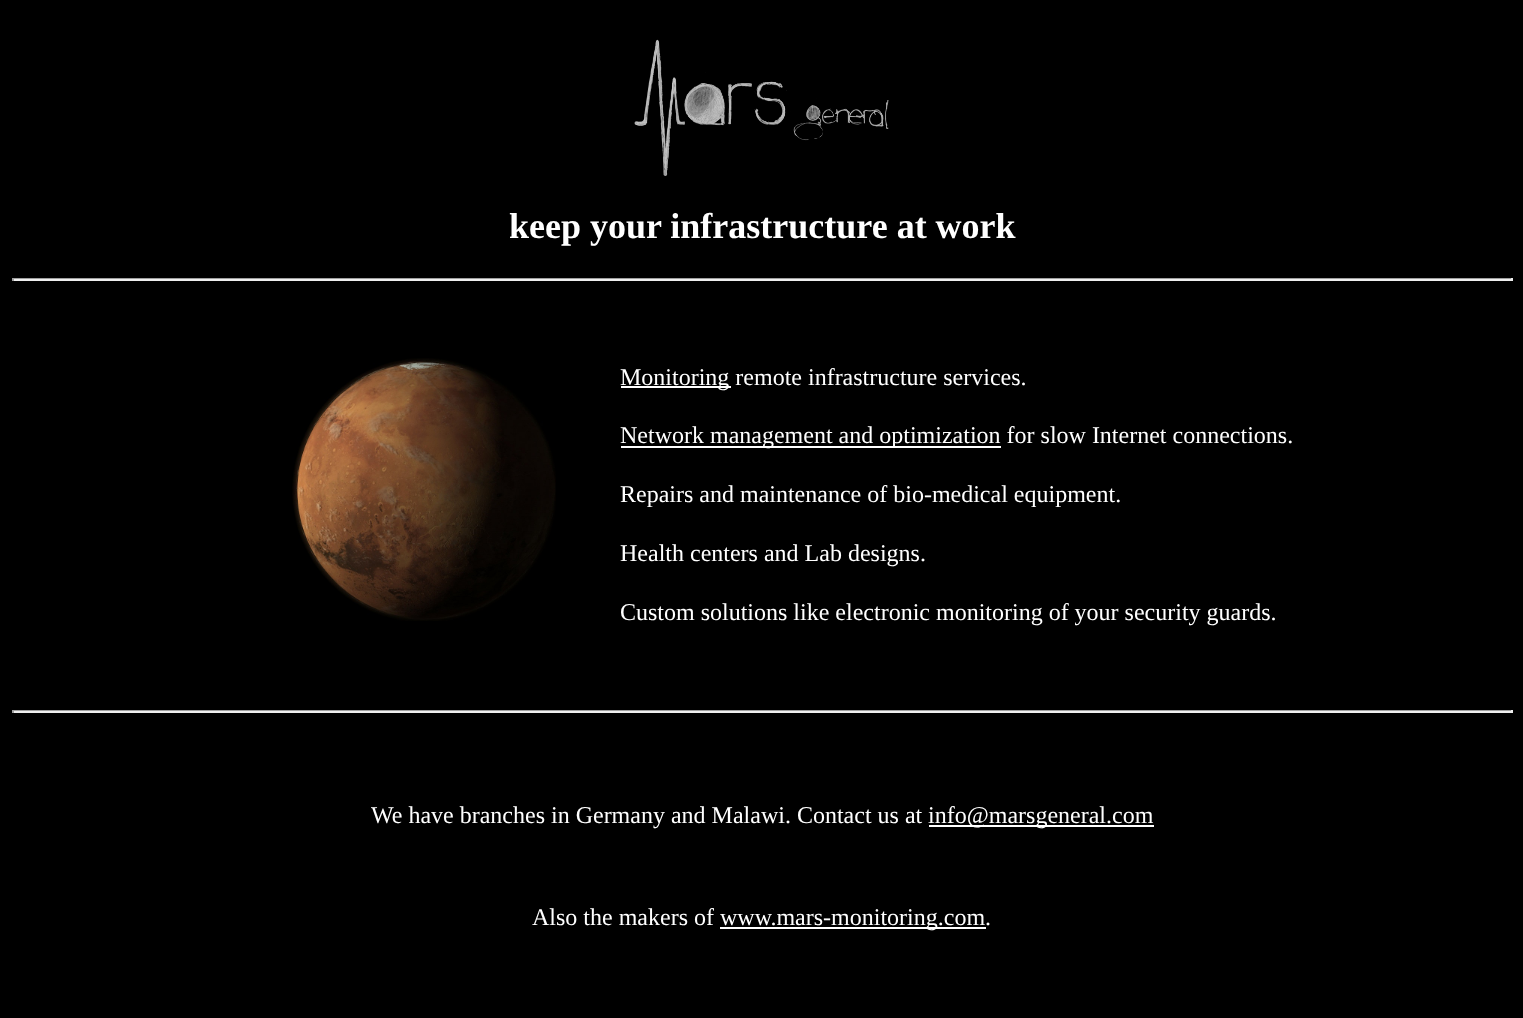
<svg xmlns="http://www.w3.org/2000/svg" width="1523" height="1018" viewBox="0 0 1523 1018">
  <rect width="100%" height="100%" fill="rgb(0,0,0)"/>
  <image x="634" y="39" width="255" height="137" href="pic1.png"/>
  <text x="509" y="238" font-family="Liberation Serif" font-size="36" font-weight="bold" fill="rgb(255,255,255)">keep your infrastructure at work</text>
  <rect x="12" y="278" width="1500" height="1" fill="rgb(159,159,159)"/>
  <rect x="1511" y="278" width="2" height="3" fill="rgb(238,238,238)"/>
  <rect x="12" y="279" width="1500" height="2" fill="rgb(238,238,238)"/>
  <rect x="12" y="278" width="2" height="3" fill="rgb(159,159,159)"/>
  <image x="292" y="358" width="264" height="263" href="pic2.png"/>
  <rect x="621" y="386" width="110" height="2" fill="rgb(255,255,255)"/>
  <text x="620" y="385" font-family="Liberation Serif" font-size="24" fill="rgb(255,255,255)">Monitoring remote infrastructure services.</text>
  <rect x="621" y="446" width="380" height="2" fill="rgb(255,255,255)"/>
  <g font-family="Liberation Serif" font-size="24" fill="rgb(255,255,255)">
    <text x="620" y="443">Network management and optimization for slow Internet connections.</text>
    <text x="620" y="502">Repairs and maintenance of bio-medical equipment.</text>
    <text x="620" y="561">Health centers and Lab designs.</text>
    <text x="620" y="620">Custom solutions like electronic monitoring of your security guards.</text>
  </g>
  <rect x="12" y="710" width="1500" height="1" fill="rgb(159,159,159)"/>
  <rect x="1511" y="710" width="2" height="3" fill="rgb(238,238,238)"/>
  <rect x="12" y="711" width="1500" height="2" fill="rgb(238,238,238)"/>
  <rect x="12" y="710" width="2" height="3" fill="rgb(159,159,159)"/>
  <text x="371" y="823" font-family="Liberation Serif" font-size="24" fill="rgb(255,255,255)">We have branches in Germany and Malawi. Contact us at</text>
  <rect x="929" y="825" width="225" height="2" fill="rgb(255,255,255)"/>
  <g font-family="Liberation Serif" font-size="24" fill="rgb(255,255,255)">
    <text x="928" y="823">info@marsgeneral.com</text>
    <text x="532" y="925">Also the makers of</text>
  </g>
  <rect x="720" y="927" width="266" height="2" fill="rgb(255,255,255)"/>
  <text x="720" y="925" font-family="Liberation Serif" font-size="24" fill="rgb(255,255,255)">www.mars-monitoring.com.</text>
</svg>
